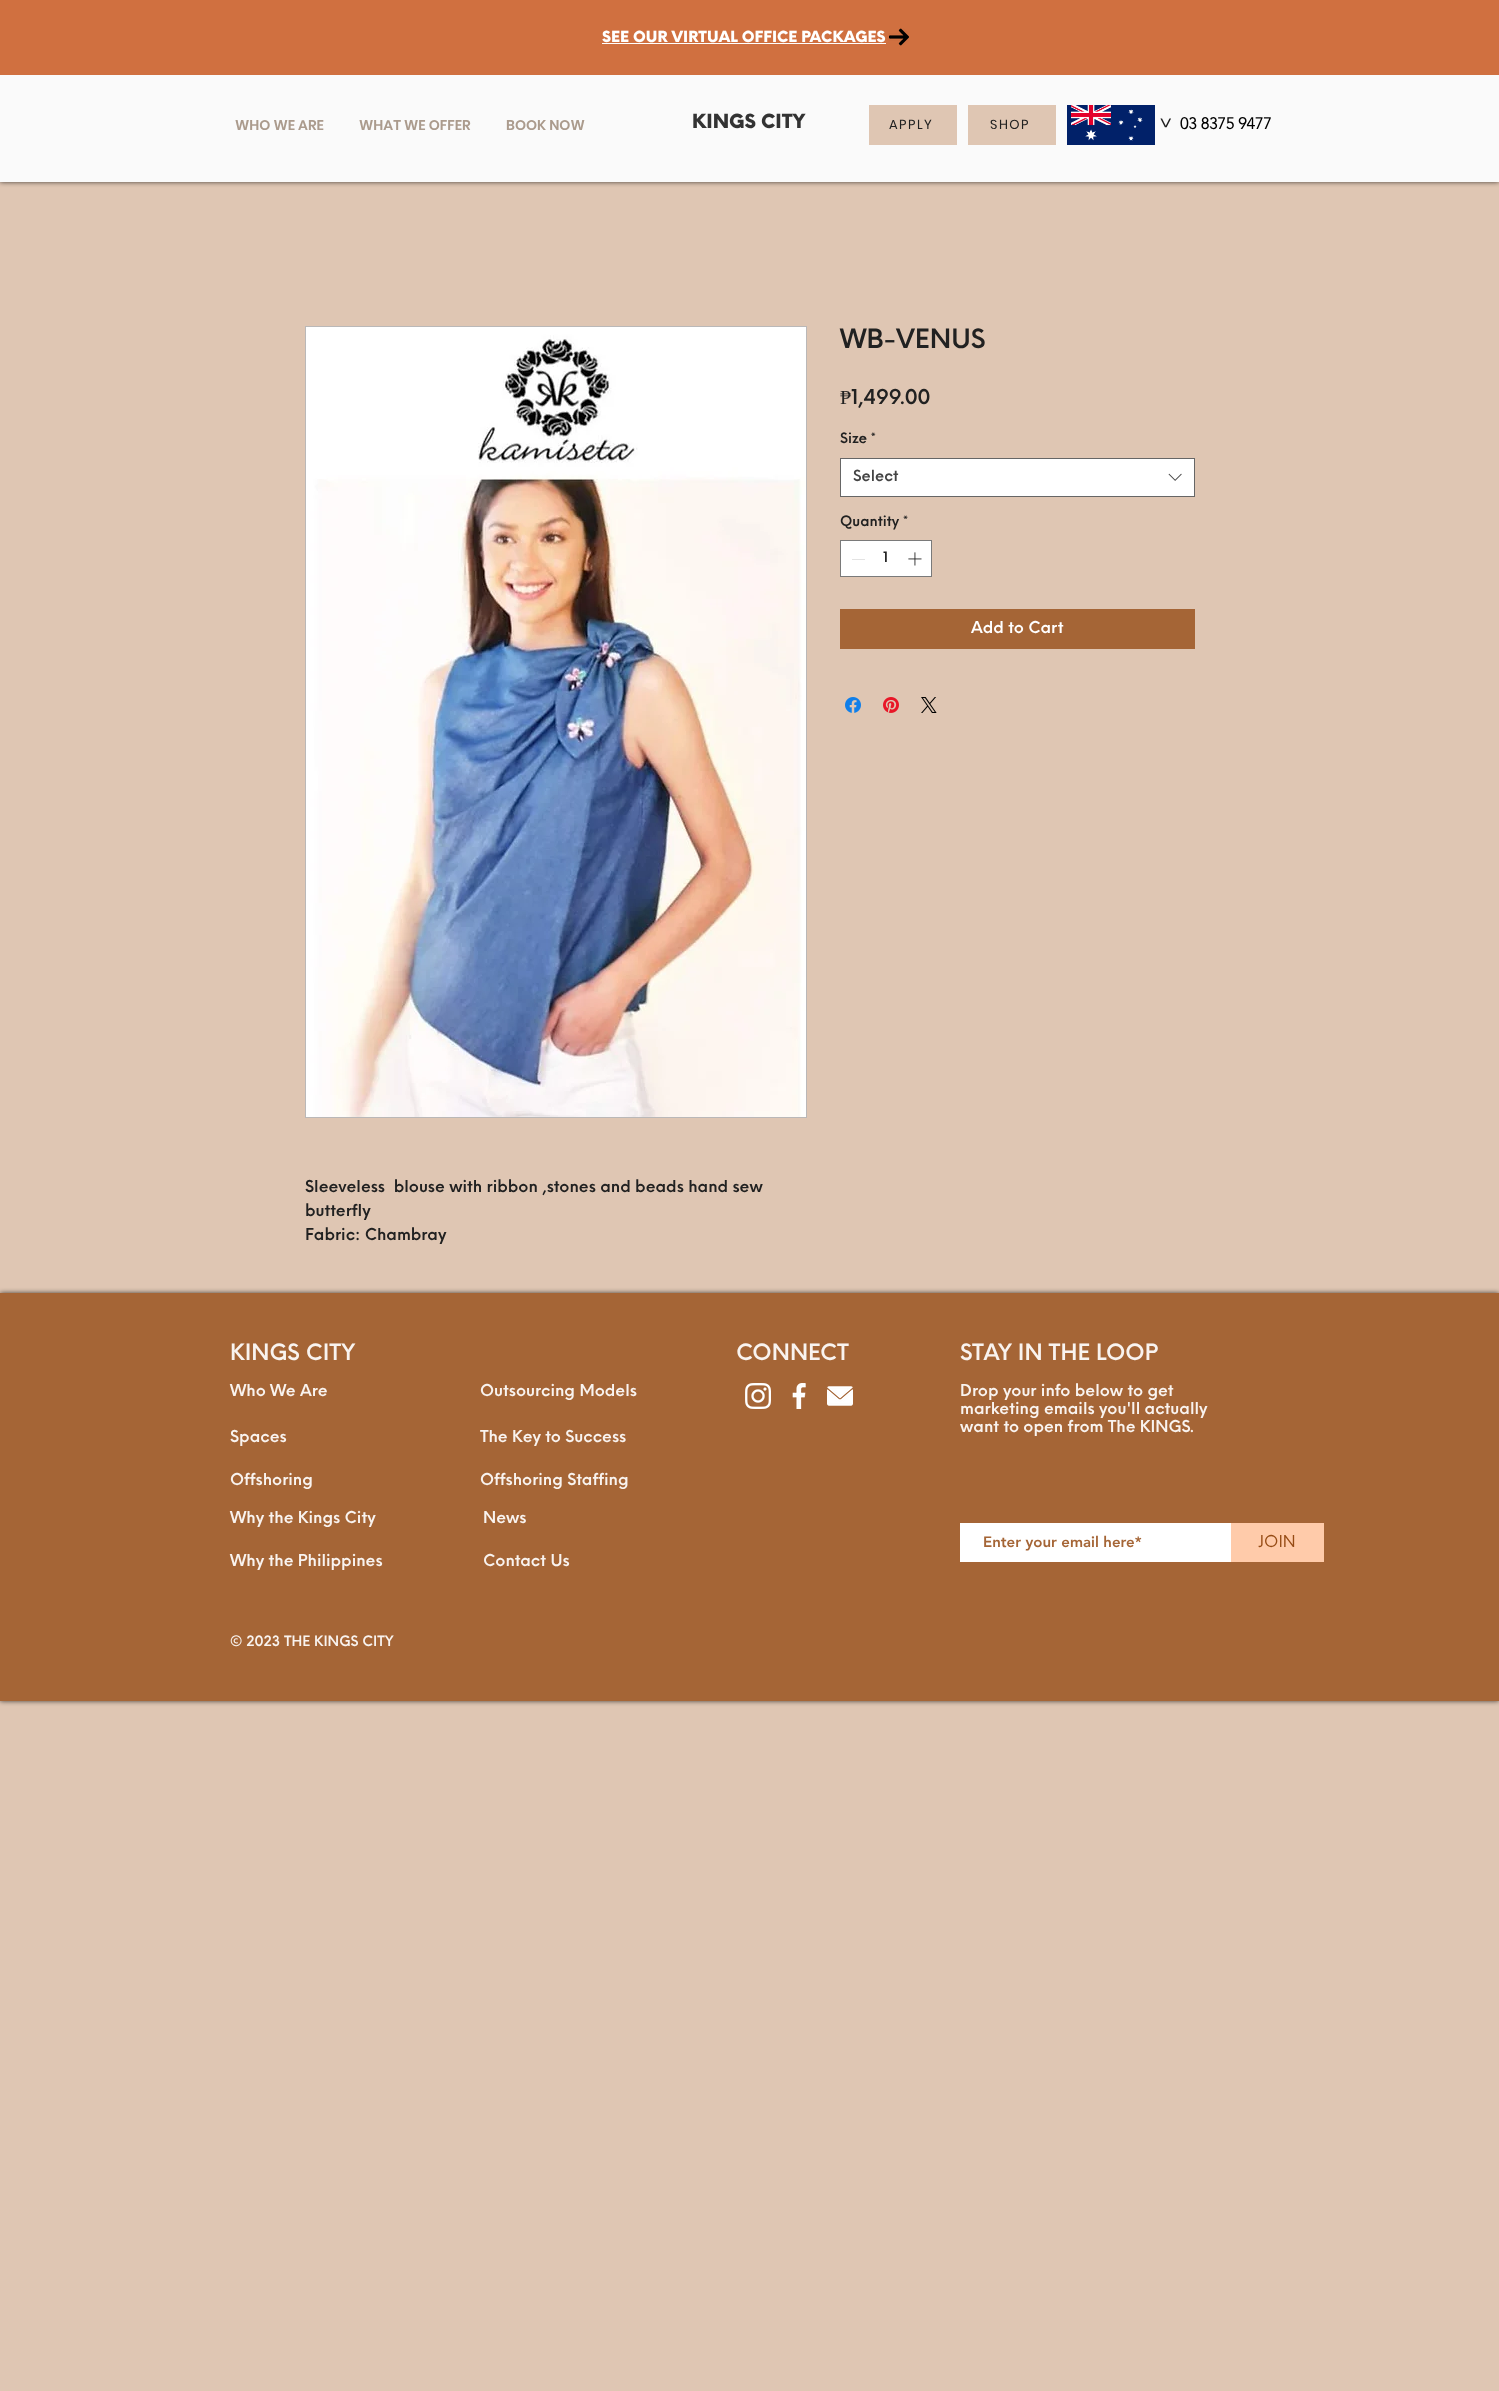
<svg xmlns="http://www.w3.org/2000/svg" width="1499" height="2391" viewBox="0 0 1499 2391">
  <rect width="100%" height="100%" fill="rgb(223,198,179)"/>
  <rect x="0" y="0" width="1499" height="182" fill="rgba(0,0,0,0.7)" filter="blur(2.5px)"/>
  <rect x="0" y="75" width="1499" height="107" fill="rgb(250,250,250)"/>
  <rect x="0" y="0" width="1499" height="75" fill="rgb(208,112,64)"/>
  <text x="602" y="42" font-family="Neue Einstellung" font-size="15" font-weight="900" fill="rgb(255,255,255)">SEE OUR VIRTUAL OFFICE PACKAGES</text>
  <rect x="602" y="43" width="284" height="1" fill="rgb(255,255,255)"/>
  <image x="889" y="28" width="20" height="18" href="pic1.png"/>
  <g font-family="Poppins" font-size="14" font-weight="600" fill="rgb(171,155,141)">
    <text x="235" y="130">WHO WE ARE</text>
    <text x="359" y="130">WHAT WE OFFER</text>
    <text x="506" y="130">BOOK NOW</text>
  </g>
  <text x="692" y="128" font-family="Neue Einstellung" font-size="19" font-weight="900" fill="rgb(51,51,51)">KINGS CITY</text>
  <rect x="869" y="105" width="88" height="40" fill="rgb(223,198,179)"/>
  <text x="889" y="129" font-family="Poppins" font-size="13" letter-spacing="1.5" fill="rgb(33,33,33)">APPLY</text>
  <rect x="968" y="105" width="88" height="40" fill="rgb(223,198,179)"/>
  <text x="990" y="129" font-family="Poppins" font-size="13" letter-spacing="1.5" fill="rgb(33,33,33)">SHOP</text>
  <rect x="1067" y="105" width="88" height="40" fill="rgb(1,33,105)"/>
  <image x="1071" y="105" width="72" height="36" href="pic2.png"/>
  <text x="1160" y="117" transform="rotate(90 1160 117)" font-family="Neue Einstellung" font-size="16" font-weight="600" letter-spacing="2" fill="rgb(33,33,33)">&gt;</text>
  <text x="1180" y="129" font-family="'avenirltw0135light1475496'" font-size="16" font-weight="bold" fill="rgb(0,0,0)">03 8375 9477</text>
  <text x="840" y="348" font-family="Neue Einstellung" font-size="26" font-weight="600" fill="rgb(33,33,33)">WB-VENUS</text>
  <text x="840" y="404" font-family="Liberation Serif" font-size="20" fill="rgb(33,33,33)">₱</text>
  <text x="851" y="404" font-family="Neue Einstellung" font-size="20" font-weight="600" fill="rgb(33,33,33)">1,499.00</text>
  <text x="840" y="443" font-family="Neue Einstellung" font-size="14" font-weight="600" fill="rgb(33,33,33)">Size *</text>
  <rect x="840.5" y="458.5" width="354" height="38" fill="rgb(255,255,255)" stroke="rgb(102,102,102)"/>
  <text x="853" y="481" font-family="Neue Einstellung" font-size="15" font-weight="600" fill="rgb(68,68,68)">Select</text>
  <image x="1168" y="473" width="14" height="8" href="pic3.png"/>
  <text x="840" y="526" font-family="Neue Einstellung" font-size="14" font-weight="600" fill="rgb(33,33,33)">Quantity *</text>
  <rect x="840.5" y="540.5" width="91" height="36" fill="rgb(255,255,255)" stroke="rgb(122,122,122)"/>
  <rect x="852" y="559" width="13" height="1" fill="rgb(227,227,227)"/>
  <text x="883" y="562" font-family="Neue Einstellung" font-size="14" font-weight="600" fill="rgb(33,33,33)">1</text>
  <image x="908" y="552" width="14" height="14" href="pic4.png"/>
  <rect x="840" y="609" width="355" height="40" fill="rgb(165,101,54)"/>
  <text x="971" y="633" font-family="Neue Einstellung" font-size="16" font-weight="600" fill="rgb(255,255,255)">Add to Cart</text>
  <image x="845" y="697" width="16" height="16" href="pic5.png"/>
  <image x="883" y="697" width="16" height="16" href="pic6.png"/>
  <image x="921" y="697" width="16" height="16" href="pic7.png"/>
  <rect x="305.5" y="326.5" width="501" height="791" fill="none" stroke="rgb(186,184,184)"/>
  <image x="306" y="327" width="500" height="790" href="pic8.png"/>
  <g font-family="Neue Einstellung" font-size="16" font-weight="600" fill="rgb(33,33,33)">
    <text xml:space="preserve"><tspan x="305" y="1192">Sleeveless  blouse with ribbon ,stones and beads hand sew</tspan><tspan x="305" y="1216">butterfly</tspan><tspan x="305" y="1240">Fabric: Chambray</tspan></text>
  </g>
  <rect x="0" y="1293" width="1499" height="408" fill="rgba(0,0,0,0.7)" filter="blur(2.5px)"/>
  <rect x="0" y="1293" width="1499" height="408" fill="rgb(165,101,54)"/>
  <g font-family="Neue Einstellung" font-size="22" font-weight="600" fill="rgb(249,243,239)">
    <text x="230" y="1360">KINGS CITY</text>
    <text x="736" y="1360">CONNECT</text>
    <text x="960" y="1360">STAY IN THE LOOP</text>
  </g>
  <g font-family="Neue Einstellung" font-size="16" font-weight="600" fill="rgb(249,243,239)">
    <text x="230" y="1396">Who We Are</text>
    <text x="480" y="1396">Outsourcing Models</text>
  </g>
  <image x="745" y="1383" width="26" height="26" href="pic9.png"/>
  <image x="792" y="1383" width="14" height="26" href="pic10.png"/>
  <image x="827" y="1386" width="26" height="20" href="pic11.png"/>
  <g font-family="Neue Einstellung" font-size="16" font-weight="600" fill="rgb(249,243,239)">
    <text>
      <tspan x="960" y="1396">Drop your info below to get</tspan>
      <tspan x="960" y="1414">marketing emails you'll actually</tspan>
      <tspan x="960" y="1432">want to open from The KINGS.</tspan>
    </text>
    <text x="230" y="1442">Spaces</text>
    <text x="480" y="1442">The Key to Success</text>
    <text x="230" y="1485">Offshoring</text>
    <text x="480" y="1485">Offshoring Staffing</text>
    <text x="230" y="1523">Why the Kings City</text>
    <text x="483" y="1523">News</text>
  </g>
  <rect x="960" y="1523" width="271" height="39" fill="rgb(255,255,255)"/>
  <text x="983" y="1547" font-family="'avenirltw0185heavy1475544'" font-size="15" font-weight="900" fill="rgb(165,101,54)">Enter your email here*</text>
  <rect x="1231" y="1523" width="93" height="39" fill="rgb(255,203,170)"/>
  <text x="1258" y="1547" font-family="Neue Einstellung" font-size="16" fill="rgb(150,75,20)">JOIN</text>
  <g font-family="Neue Einstellung" font-size="16" font-weight="600" fill="rgb(249,243,239)">
    <text x="230" y="1566">Why the Philippines</text>
    <text x="483" y="1566">Contact Us</text>
  </g>
  <text x="230" y="1646" font-family="Neue Einstellung" font-size="14" font-weight="600" fill="rgb(249,243,239)">© 2023 THE KINGS CITY</text>
</svg>
